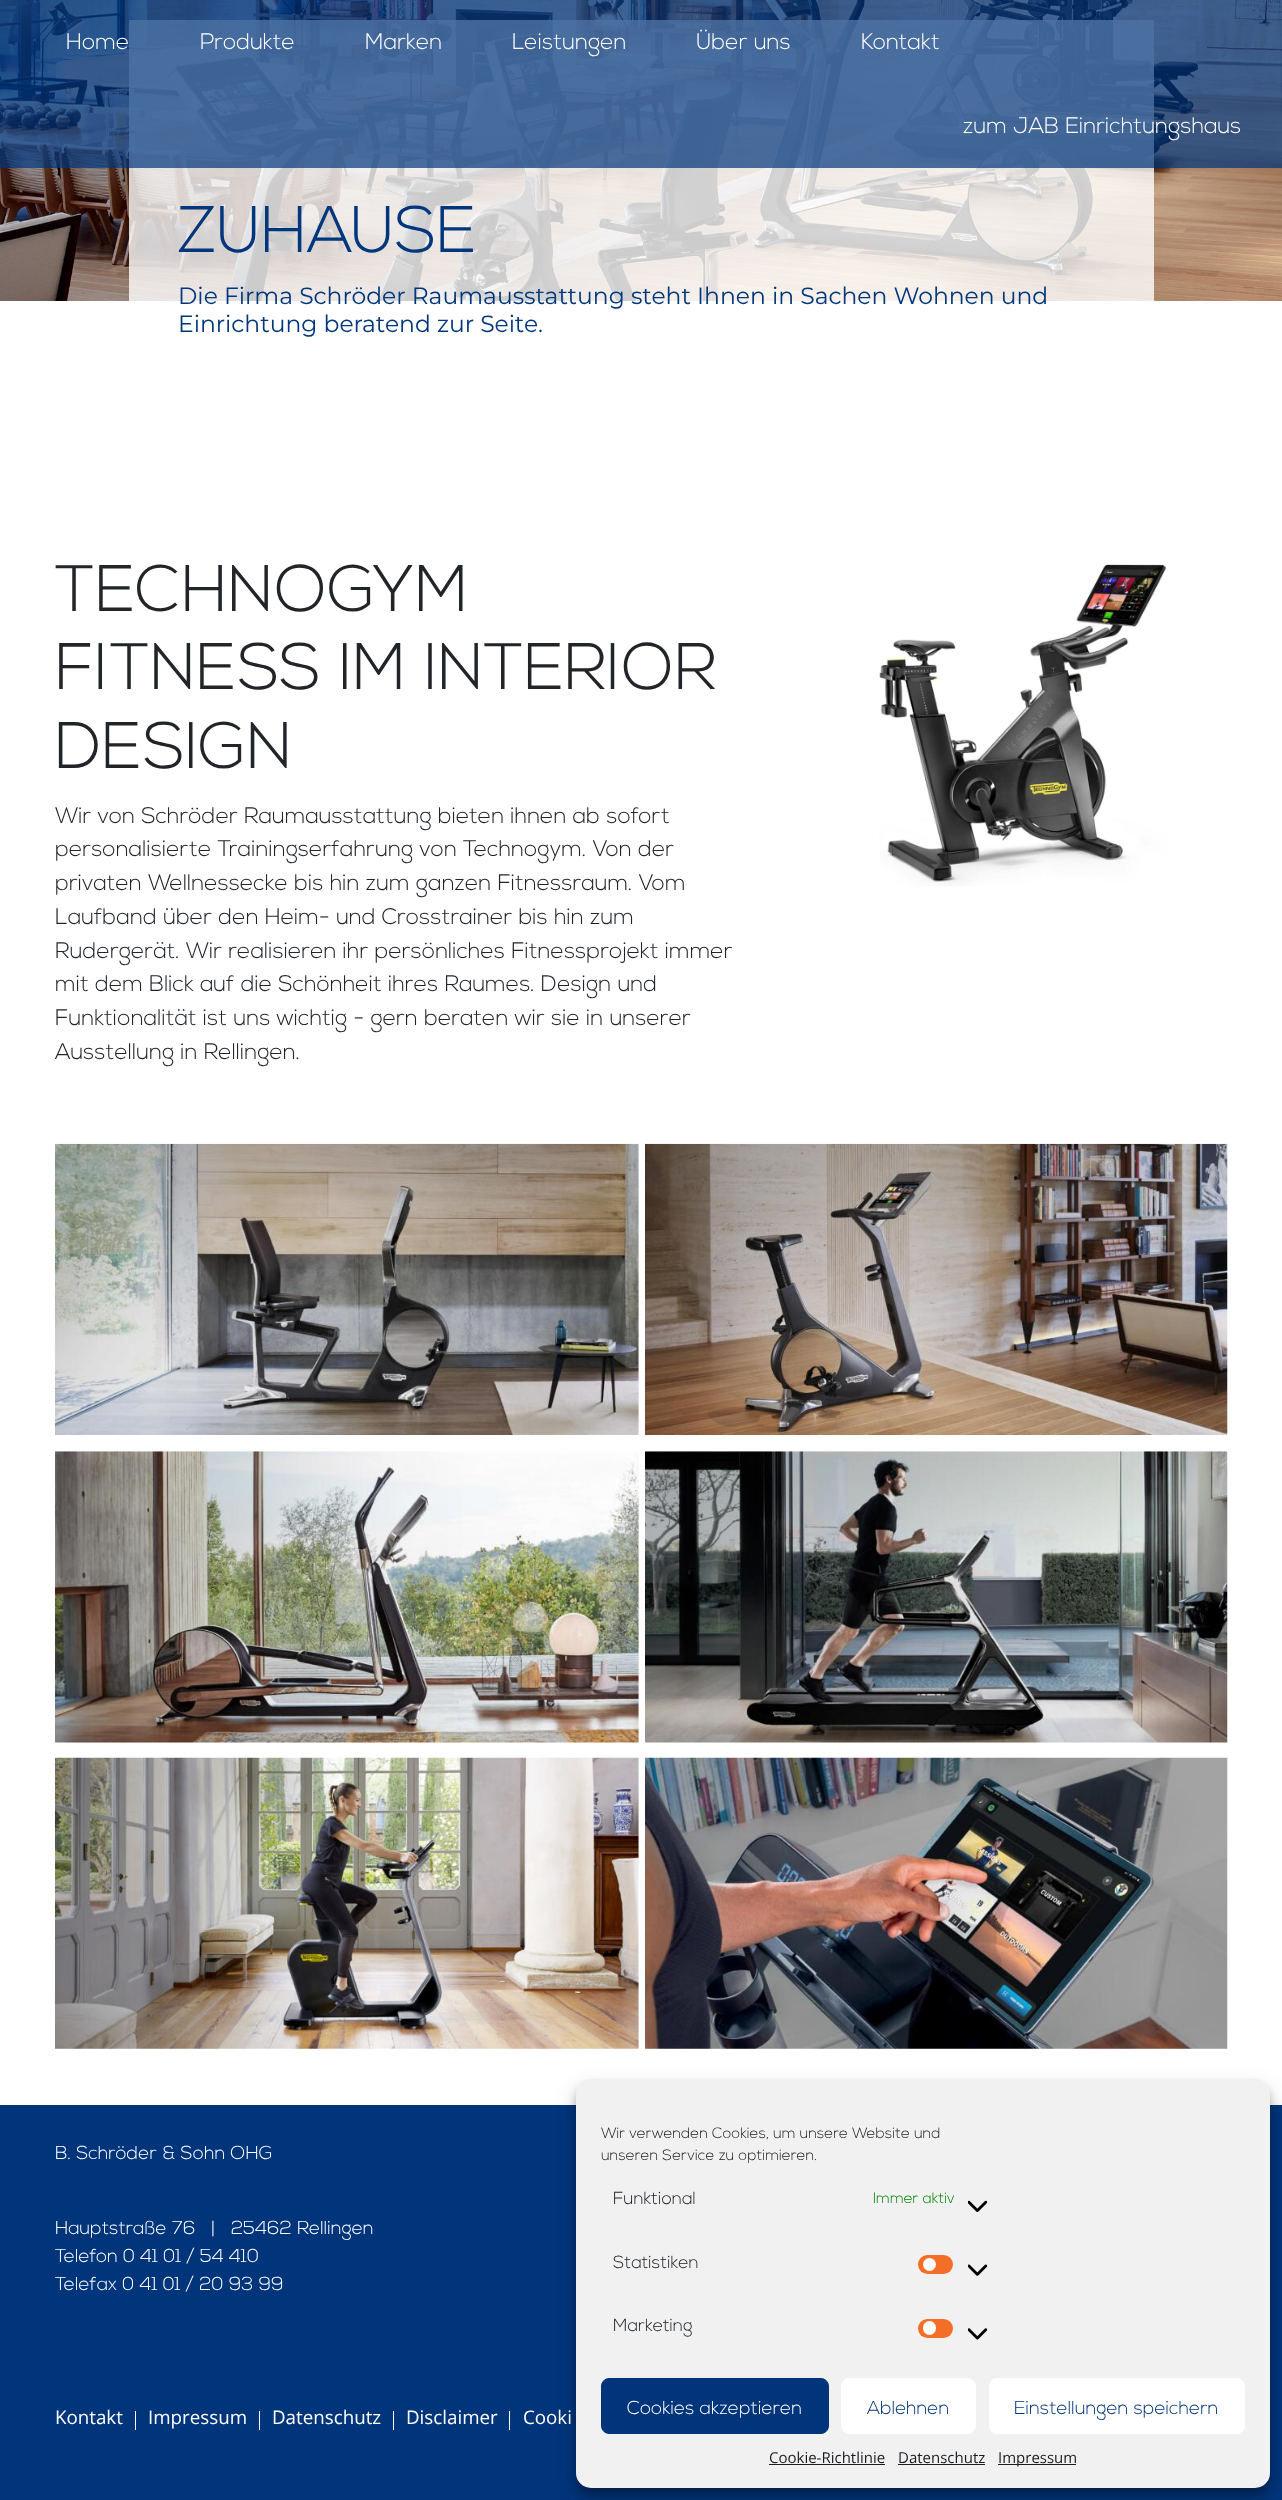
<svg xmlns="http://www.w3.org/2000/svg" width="1282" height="2500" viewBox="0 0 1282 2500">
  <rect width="100%" height="100%" fill="rgb(255,255,255)"/>
  <image x="0" y="0" width="1282" height="301" href="pic1.png"/>
  <rect x="129" y="20" width="1025" height="281" fill="rgba(255,255,255,0.8)"/>
  <rect x="0" y="0" width="1282" height="168" fill="rgba(0,53,124,0.7)"/>
  <g font-family="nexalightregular" font-size="22.5" fill="rgb(255,255,255)">
    <text x="66" y="49">Home</text>
    <text x="200" y="49">Produkte</text>
    <text x="365" y="49">Marken</text>
    <text x="512" y="49">Leistungen</text>
    <text x="696" y="49">Über uns</text>
    <text x="861" y="49">Kontakt</text>
    <text x="963" y="133">zum JAB Einrichtungshaus</text>
  </g>
  <text x="178" y="252" font-family="nexalightregular" font-size="65.6" fill="rgb(0,54,124)">ZUHAUSE</text>
  <g font-family="Montserrat" font-size="23.45" fill="rgb(0,54,124)">
    <text>
      <tspan x="178" y="304">Die Firma Schröder Raumausstattung steht Ihnen in Sachen Wohnen und</tspan>
      <tspan x="178" y="332">Einrichtung beratend zur Seite.</tspan>
    </text>
  </g>
  <g font-family="nexalightregular" font-size="65.6" fill="rgb(33,37,41)">
    <text>
      <tspan x="55" y="611">TECHNOGYM</tspan>
      <tspan x="55" y="689">FITNESS IM INTERIOR</tspan>
      <tspan x="55" y="768">DESIGN</tspan>
    </text>
  </g>
  <g font-family="nexalightregular" font-size="22.5" fill="rgb(33,37,41)">
    <text>
      <tspan x="55" y="823">Wir von Schröder Raumausstattung bieten ihnen ab sofort</tspan>
      <tspan x="55" y="856">personalisierte Trainingserfahrung von Technogym. Von der</tspan>
      <tspan x="55" y="890">privaten Wellnessecke bis hin zum ganzen Fitnessraum. Vom</tspan>
      <tspan x="55" y="924">Laufband über den Heim- und Crosstrainer bis hin zum</tspan>
      <tspan x="55" y="958">Rudergerät. Wir realisieren ihr persönliches Fitnessprojekt immer</tspan>
      <tspan x="55" y="991">mit dem Blick auf die Schönheit ihres Raumes. Design und</tspan>
      <tspan x="55" y="1025">Funktionalität ist uns wichtig - gern beraten wir sie in unserer</tspan>
      <tspan x="55" y="1059">Ausstellung in Rellingen.</tspan>
    </text>
  </g>
  <image x="879" y="564" width="288" height="322" href="pic2.png"/>
  <image x="55" y="1143" width="584" height="292" href="pic3.png"/>
  <image x="645" y="1143" width="583" height="292" href="pic4.png"/>
  <image x="55" y="1451" width="584" height="292" href="pic5.png"/>
  <image x="645" y="1451" width="583" height="292" href="pic6.png"/>
  <image x="55" y="1757" width="584" height="292" href="pic7.png"/>
  <image x="645" y="1757" width="583" height="292" href="pic8.png"/>
  <rect x="0" y="2105" width="1282" height="395" fill="rgb(0,53,124)"/>
  <g font-family="nexalightregular" font-size="18.75" fill="rgb(255,255,255)">
    <text x="55" y="2159">B. Schröder &amp; Sohn OHG</text>
    <text xml:space="preserve"><tspan x="55" y="2234">Hauptstraße 76   |   25462 Rellingen</tspan><tspan x="55" y="2262">Telefon 0 41 01 / 54 410</tspan><tspan x="55" y="2290">Telefax 0 41 01 / 20 93 99</tspan></text>
  </g>
  <text x="55" y="2424" font-family="Open Sans" font-size="18.75" fill="rgb(255,255,255)">Kontakt</text>
  <rect x="135" y="2411" width="1" height="19" fill="rgb(255,255,255)"/>
  <text x="148" y="2424" font-family="Open Sans" font-size="18.75" fill="rgb(255,255,255)">Impressum</text>
  <rect x="259" y="2411" width="1" height="19" fill="rgb(255,255,255)"/>
  <text x="272" y="2424" font-family="Open Sans" font-size="18.75" fill="rgb(255,255,255)">Datenschutz</text>
  <rect x="393" y="2411" width="1" height="19" fill="rgb(255,255,255)"/>
  <text x="406" y="2424" font-family="Open Sans" font-size="18.75" fill="rgb(255,255,255)">Disclaimer</text>
  <rect x="509" y="2411" width="1" height="19" fill="rgb(255,255,255)"/>
  <text x="523" y="2424" font-family="Open Sans" font-size="18.75" fill="rgb(255,255,255)">Cooki</text>
  <rect x="576" y="2086" width="694" height="409" rx="15" fill="rgba(0,0,0,0.23)" filter="blur(4px)"/>
  <rect x="576" y="2091" width="694" height="409" rx="15" fill="rgba(0,0,0,0.19)" filter="blur(12.5px)"/>
  <rect x="576" y="2079" width="694" height="409" rx="15" fill="rgb(241,241,241)"/>
  <g font-family="nexalightregular" font-size="15" fill="rgb(25,30,35)">
    <text>
      <tspan x="601" y="2138">Wir verwenden Cookies, um unsere Website und</tspan>
      <tspan x="601" y="2160">unseren Service zu optimieren.</tspan>
    </text>
  </g>
  <text x="613" y="2204" font-family="nexalightregular" font-size="17.5" fill="rgb(25,30,35)">Funktional</text>
  <text x="873" y="2203" font-family="nexalightregular" font-size="15" fill="rgb(0,128,0)">Immer aktiv</text>
  <image x="968" y="2200" width="20" height="12" href="pic9.png"/>
  <text x="613" y="2268" font-family="nexalightregular" font-size="17.5" fill="rgb(25,30,35)">Statistiken</text>
  <rect x="918" y="2255" width="35" height="19" rx="9.5" fill="rgb(245,110,40)"/>
  <circle cx="929.5" cy="2264.5" r="6.5" fill="rgb(255,255,255)"/>
  <image x="968" y="2264" width="20" height="12" href="pic10.png"/>
  <text x="613" y="2331" font-family="nexalightregular" font-size="17.5" fill="rgb(25,30,35)">Marketing</text>
  <rect x="918" y="2319" width="35" height="19" rx="9.5" fill="rgb(245,110,40)"/>
  <rect x="923" y="2321" width="13" height="14" rx="6.5" fill="rgb(255,255,255)"/>
  <image x="968" y="2328" width="20" height="12" href="pic11.png"/>
  <rect x="601.5" y="2378.5" width="227" height="55" rx="7.5" fill="rgb(0,53,124)" stroke="rgb(0,53,124)"/>
  <text x="627" y="2414" font-family="nexalightregular" font-size="18.75" fill="rgb(255,255,255)">Cookies akzeptieren</text>
  <rect x="841.5" y="2378.5" width="134" height="55" rx="7.5" fill="rgb(255,255,255)" stroke="rgb(255,255,255)"/>
  <text x="867" y="2414" font-family="nexalightregular" font-size="18.75" fill="rgb(0,54,124)">Ablehnen</text>
  <rect x="989.5" y="2378.5" width="255" height="55" rx="7.5" fill="rgb(255,255,255)" stroke="rgb(255,255,255)"/>
  <text x="1014" y="2414" font-family="nexalightregular" font-size="18.75" fill="rgb(0,54,124)">Einstellungen speichern</text>
  <text x="769" y="2463" font-family="Open Sans" font-size="15" fill="rgb(25,30,35)">Cookie-Richtlinie</text>
  <rect x="769" y="2464" width="116" height="1" fill="rgb(25,30,35)"/>
  <text x="898" y="2463" font-family="Open Sans" font-size="15" fill="rgb(25,30,35)">Datenschutz</text>
  <rect x="898" y="2464" width="87" height="1" fill="rgb(25,30,35)"/>
  <rect x="998" y="2464" width="78" height="1" fill="rgb(25,30,35)"/>
  <text x="998" y="2463" font-family="Open Sans" font-size="15" fill="rgb(25,30,35)">Impressum</text>
</svg>
